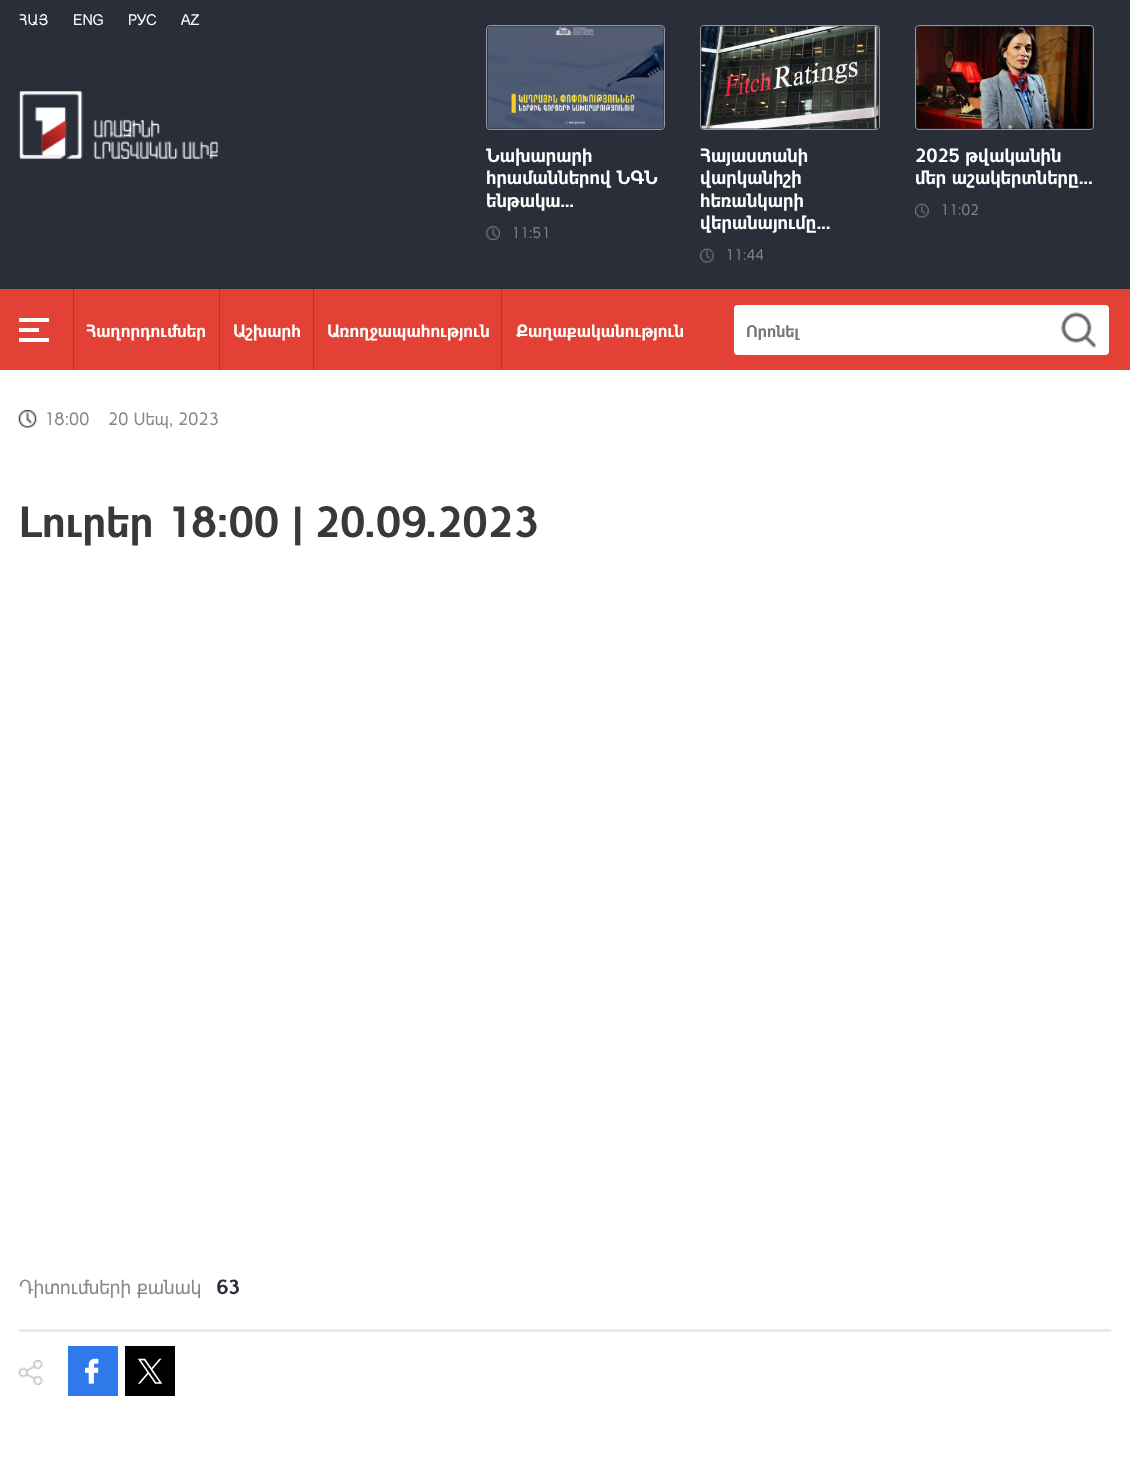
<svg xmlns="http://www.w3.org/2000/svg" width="1130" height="1478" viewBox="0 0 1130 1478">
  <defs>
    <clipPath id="clip1"><rect x="746" y="320" width="300" height="20"/></clipPath>
  </defs>
  <rect width="100%" height="100%" fill="rgb(255,255,255)"/>
  <rect x="0" y="0" width="1130" height="289" fill="rgb(41,46,57)"/>
  <g font-family="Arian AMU" font-size="15" fill="rgb(255,255,255)">
    <text x="19" y="25">ՀԱՅ</text>
    <text x="73" y="25">ENG</text>
    <text x="128" y="25">РУС</text>
    <text x="181" y="25">AZ</text>
  </g>
  <image x="18" y="91" width="201" height="68" href="pic1.png"/>
  <rect x="486.5" y="25.5" width="178" height="104" rx="3.5" fill="none" stroke="rgb(148,151,156)"/>
  <image x="487" y="26" width="177" height="103" href="pic2.png"/>
  <g font-family="Arian AMU" font-size="18.75" font-weight="bold" fill="rgb(255,255,255)">
    <text>
      <tspan x="486" y="162">Նախարարի</tspan>
      <tspan x="486" y="184">հրամաններով ՆԳՆ</tspan>
      <tspan x="486" y="207">ենթակա...</tspan>
    </text>
  </g>
  <image x="486" y="226" width="14" height="14" href="pic3.png"/>
  <text x="511" y="238" font-family="Arian AMU" font-size="15" fill="rgb(127,130,136)">11:51</text>
  <rect x="700.5" y="25.5" width="179" height="104" rx="3.5" fill="none" stroke="rgb(148,151,156)"/>
  <image x="701" y="26" width="178" height="103" href="pic4.png"/>
  <g font-family="Arian AMU" font-size="18.75" font-weight="bold" fill="rgb(255,255,255)">
    <text>
      <tspan x="700" y="162">Հայաստանի</tspan>
      <tspan x="700" y="184">վարկանիշի</tspan>
      <tspan x="700" y="207">հեռանկարի</tspan>
      <tspan x="700" y="229">վերանայումը...</tspan>
    </text>
  </g>
  <image x="700" y="248" width="14" height="15" href="pic5.png"/>
  <text x="725" y="260" font-family="Arian AMU" font-size="15" fill="rgb(127,130,136)">11:44</text>
  <rect x="915.5" y="25.5" width="178" height="104" rx="3.5" fill="none" stroke="rgb(148,151,156)"/>
  <image x="916" y="26" width="177" height="103" href="pic6.png"/>
  <g font-family="Arian AMU" font-size="18.75" font-weight="bold" fill="rgb(255,255,255)">
    <text>
      <tspan x="915" y="162">2025 թվականին</tspan>
      <tspan x="915" y="184">մեր աշակերտները...</tspan>
    </text>
  </g>
  <image x="915" y="203" width="14" height="15" href="pic7.png"/>
  <text x="940" y="215" font-family="Arian AMU" font-size="15" fill="rgb(127,130,136)">11:02</text>
  <rect x="0" y="289" width="1130" height="81" fill="rgb(227,65,53)"/>
  <rect x="19" y="318" width="30" height="4" fill="rgb(255,255,255)"/>
  <rect x="19" y="328" width="20" height="4" fill="rgb(255,255,255)"/>
  <rect x="19" y="338" width="30" height="4" fill="rgb(255,255,255)"/>
  <rect x="73" y="289" width="1" height="81" fill="rgb(182,52,42)"/>
  <text x="86" y="337" font-family="Arian AMU" font-size="17.5" font-weight="bold" fill="rgb(255,255,255)">Հաղորդումներ</text>
  <rect x="219" y="289" width="1" height="81" fill="rgb(182,52,42)"/>
  <text x="233" y="337" font-family="Arian AMU" font-size="17.5" font-weight="bold" fill="rgb(255,255,255)">Աշխարհ</text>
  <rect x="313" y="289" width="1" height="81" fill="rgb(182,52,42)"/>
  <text x="327" y="337" font-family="Arian AMU" font-size="17.5" font-weight="bold" fill="rgb(255,255,255)">Առողջապահություն</text>
  <rect x="501" y="289" width="1" height="81" fill="rgb(182,52,42)"/>
  <text x="516" y="337" font-family="Arian AMU" font-size="17.5" font-weight="bold" fill="rgb(255,255,255)">Քաղաքականություն</text>
  <rect x="734" y="305" width="375" height="50" rx="4" fill="rgb(255,255,255)"/>
  <g clip-path="url(#clip1)">
    <text x="746" y="337" font-family="Arian AMU" font-size="16.5" font-weight="bold" fill="rgb(117,117,117)">Որոնել</text>
  </g>
  <image x="1061" y="312" width="36" height="36" href="pic8.png"/>
  <image x="18" y="410" width="19" height="18" href="pic9.png"/>
  <g font-family="Arian AMU" font-size="17.5" fill="rgb(136,136,136)">
    <text x="44" y="425">18:00</text>
    <text x="108" y="425">20 Սեպ, 2023</text>
  </g>
  <text x="19" y="537" font-family="Arian AMU" font-size="42.5" font-weight="bold" fill="rgb(57,57,57)">Լուրեր 18:00 | 20.09.2023</text>
  <rect x="19" y="1329" width="1092" height="3" fill="rgb(234,234,235)"/>
  <text x="19" y="1294" font-family="Arian AMU" font-size="20" fill="rgb(136,136,136)">Դիտումների քանակ</text>
  <text x="216" y="1294" font-family="Arian AMU" font-size="20" font-weight="bold" fill="rgb(41,46,57)">63</text>
  <image x="18" y="1360" width="25" height="25" href="pic10.png"/>
  <image x="68" y="1346" width="50" height="50" href="pic11.png"/>
  <image x="125" y="1346" width="50" height="50" href="pic12.png"/>
</svg>
